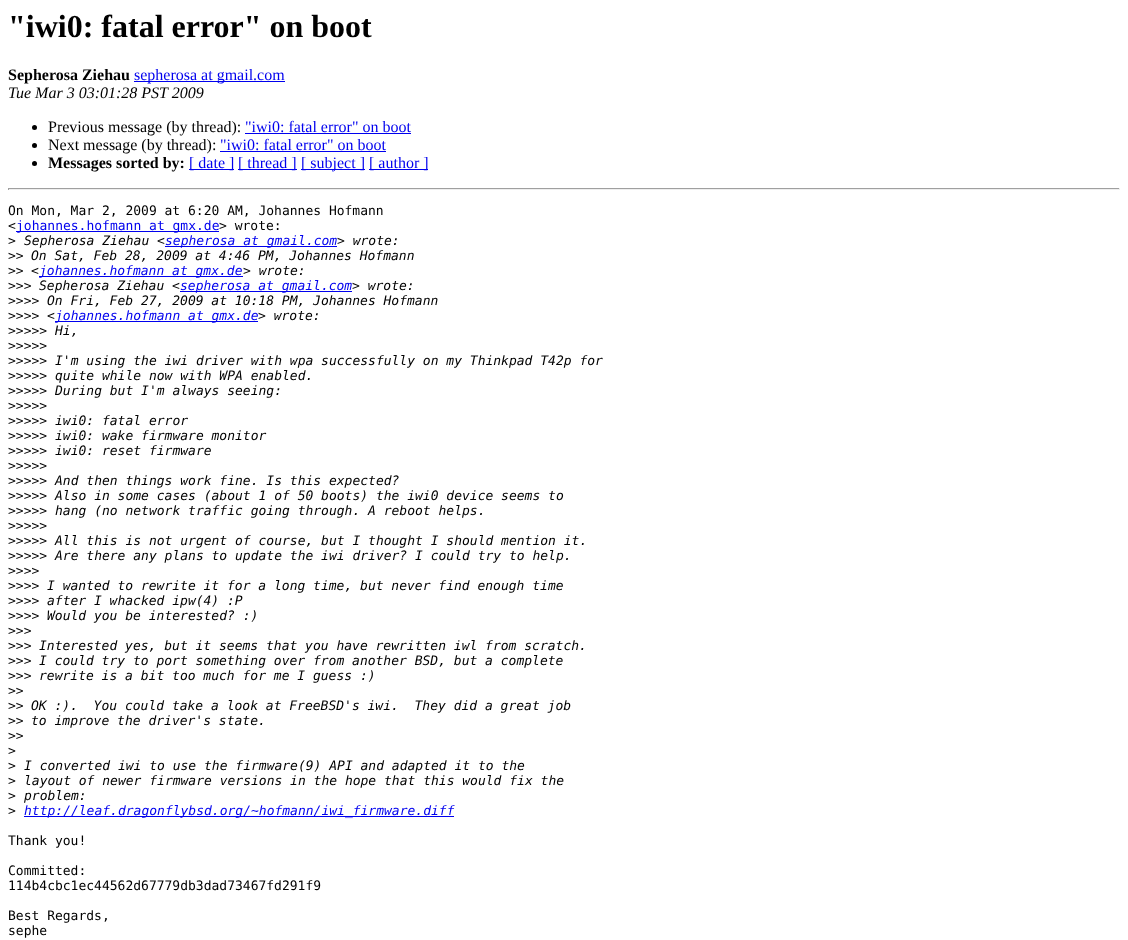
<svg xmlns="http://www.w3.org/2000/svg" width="1128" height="940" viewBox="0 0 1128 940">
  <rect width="100%" height="100%" fill="rgb(255,255,255)"/>
  <text x="8" y="37" font-family="Liberation Serif" font-size="32" font-weight="bold" fill="rgb(0,0,0)">"iwi0: fatal error" on boot</text>
  <text x="8" y="80" font-family="Liberation Serif" font-size="16" font-weight="bold" fill="rgb(0,0,0)">Sepherosa Ziehau</text>
  <rect x="134" y="81" width="151" height="1" fill="rgb(0,0,238)"/>
  <text x="134" y="80" font-family="Liberation Serif" font-size="16" fill="rgb(0,0,238)">sepherosa at gmail.com</text>
  <text x="8" y="98" font-family="Liberation Serif" font-size="16" font-style="italic" fill="rgb(0,0,0)">Tue Mar 3 03:01:28 PST 2009</text>
  <circle cx="34.5" cy="127.5" r="2.5" fill="rgb(0,0,0)"/>
  <text x="48" y="132" font-family="Liberation Serif" font-size="16" fill="rgb(0,0,0)">Previous message (by thread):</text>
  <text x="245" y="132" font-family="Liberation Serif" font-size="16" fill="rgb(0,0,238)">"iwi0: fatal error" on boot</text>
  <rect x="245" y="133" width="166" height="1" fill="rgb(0,0,238)"/>
  <circle cx="34.5" cy="145.5" r="2.5" fill="rgb(0,0,0)"/>
  <text x="48" y="150" font-family="Liberation Serif" font-size="16" fill="rgb(0,0,0)">Next message (by thread):</text>
  <text x="220" y="150" font-family="Liberation Serif" font-size="16" fill="rgb(0,0,238)">"iwi0: fatal error" on boot</text>
  <rect x="220" y="151" width="166" height="1" fill="rgb(0,0,238)"/>
  <circle cx="34.5" cy="163.5" r="2.5" fill="rgb(0,0,0)"/>
  <text x="48" y="168" font-family="Liberation Serif" font-size="16" font-weight="bold" fill="rgb(0,0,0)">Messages sorted by:</text>
  <rect x="189" y="169" width="45" height="1" fill="rgb(0,0,238)"/>
  <text x="189" y="168" font-family="Liberation Serif" font-size="16" fill="rgb(0,0,238)">[ date ]</text>
  <rect x="238" y="169" width="59" height="1" fill="rgb(0,0,238)"/>
  <text x="238" y="168" font-family="Liberation Serif" font-size="16" fill="rgb(0,0,238)">[ thread ]</text>
  <rect x="301" y="169" width="64" height="1" fill="rgb(0,0,238)"/>
  <text x="301" y="168" font-family="Liberation Serif" font-size="16" fill="rgb(0,0,238)">[ subject ]</text>
  <rect x="369" y="169" width="59" height="1" fill="rgb(0,0,238)"/>
  <text x="369" y="168" font-family="Liberation Serif" font-size="16" fill="rgb(0,0,238)">[ author ]</text>
  <rect x="8" y="188" width="1112" height="1" fill="rgb(159,159,159)"/>
  <rect x="1119" y="188" width="1" height="2" fill="rgb(238,238,238)"/>
  <rect x="8" y="189" width="1112" height="1" fill="rgb(238,238,238)"/>
  <rect x="8" y="188" width="1" height="2" fill="rgb(159,159,159)"/>
  <g font-family="DejaVu Sans Mono" font-size="13" fill="rgb(0,0,0)">
    <text>
      <tspan x="8" y="215">On Mon, Mar 2, 2009 at 6:20 AM, Johannes Hofmann</tspan>
      <tspan x="8" y="230">&lt;</tspan>
    </text>
  </g>
  <rect x="16" y="231" width="203" height="1" fill="rgb(0,0,238)"/>
  <text x="16" y="230" font-family="DejaVu Sans Mono" font-size="13" fill="rgb(0,0,238)">johannes.hofmann at gmx.de</text>
  <g font-family="DejaVu Sans Mono" font-size="13" fill="rgb(0,0,0)">
    <text x="219" y="230">&gt; wrote:</text>
    <text x="8" y="245">&gt;</text>
  </g>
  <text x="24" y="245" font-family="DejaVu Sans Mono" font-size="13" font-style="italic" fill="rgb(0,0,0)">Sepherosa Ziehau &lt;</text>
  <rect x="165" y="246" width="172" height="1" fill="rgb(0,0,238)"/>
  <text x="165" y="245" font-family="DejaVu Sans Mono" font-size="13" font-style="italic" fill="rgb(0,0,238)">sepherosa at gmail.com</text>
  <text x="337" y="245" font-family="DejaVu Sans Mono" font-size="13" font-style="italic" fill="rgb(0,0,0)">&gt; wrote:</text>
  <text x="8" y="260" font-family="DejaVu Sans Mono" font-size="13" fill="rgb(0,0,0)">&gt;&gt;</text>
  <text x="31" y="260" font-family="DejaVu Sans Mono" font-size="13" font-style="italic" fill="rgb(0,0,0)">On Sat, Feb 28, 2009 at 4:46 PM, Johannes Hofmann</text>
  <text x="8" y="275" font-family="DejaVu Sans Mono" font-size="13" fill="rgb(0,0,0)">&gt;&gt;</text>
  <text x="31" y="275" font-family="DejaVu Sans Mono" font-size="13" font-style="italic" fill="rgb(0,0,0)">&lt;</text>
  <rect x="39" y="276" width="204" height="1" fill="rgb(0,0,238)"/>
  <text x="39" y="275" font-family="DejaVu Sans Mono" font-size="13" font-style="italic" fill="rgb(0,0,238)">johannes.hofmann at gmx.de</text>
  <text x="243" y="275" font-family="DejaVu Sans Mono" font-size="13" font-style="italic" fill="rgb(0,0,0)">&gt; wrote:</text>
  <text x="8" y="290" font-family="DejaVu Sans Mono" font-size="13" fill="rgb(0,0,0)">&gt;&gt;&gt;</text>
  <text x="39" y="290" font-family="DejaVu Sans Mono" font-size="13" font-style="italic" fill="rgb(0,0,0)">Sepherosa Ziehau &lt;</text>
  <rect x="180" y="291" width="172" height="1" fill="rgb(0,0,238)"/>
  <text x="180" y="290" font-family="DejaVu Sans Mono" font-size="13" font-style="italic" fill="rgb(0,0,238)">sepherosa at gmail.com</text>
  <text x="352" y="290" font-family="DejaVu Sans Mono" font-size="13" font-style="italic" fill="rgb(0,0,0)">&gt; wrote:</text>
  <text x="8" y="305" font-family="DejaVu Sans Mono" font-size="13" fill="rgb(0,0,0)">&gt;&gt;&gt;&gt;</text>
  <text x="47" y="305" font-family="DejaVu Sans Mono" font-size="13" font-style="italic" fill="rgb(0,0,0)">On Fri, Feb 27, 2009 at 10:18 PM, Johannes Hofmann</text>
  <text x="8" y="320" font-family="DejaVu Sans Mono" font-size="13" fill="rgb(0,0,0)">&gt;&gt;&gt;&gt;</text>
  <text x="47" y="320" font-family="DejaVu Sans Mono" font-size="13" font-style="italic" fill="rgb(0,0,0)">&lt;</text>
  <rect x="55" y="321" width="203" height="1" fill="rgb(0,0,238)"/>
  <text x="55" y="320" font-family="DejaVu Sans Mono" font-size="13" font-style="italic" fill="rgb(0,0,238)">johannes.hofmann at gmx.de</text>
  <text x="258" y="320" font-family="DejaVu Sans Mono" font-size="13" font-style="italic" fill="rgb(0,0,0)">&gt; wrote:</text>
  <text x="8" y="335" font-family="DejaVu Sans Mono" font-size="13" fill="rgb(0,0,0)">&gt;&gt;&gt;&gt;&gt;</text>
  <text x="55" y="335" font-family="DejaVu Sans Mono" font-size="13" font-style="italic" fill="rgb(0,0,0)">Hi,</text>
  <g font-family="DejaVu Sans Mono" font-size="13" fill="rgb(0,0,0)">
    <text>
      <tspan x="8" y="350">&gt;&gt;&gt;&gt;&gt;</tspan>
      <tspan x="8" y="365">&gt;&gt;&gt;&gt;&gt;</tspan>
    </text>
  </g>
  <text x="55" y="365" font-family="DejaVu Sans Mono" font-size="13" font-style="italic" fill="rgb(0,0,0)">I'm using the iwi driver with wpa successfully on my Thinkpad T42p for</text>
  <text x="8" y="380" font-family="DejaVu Sans Mono" font-size="13" fill="rgb(0,0,0)">&gt;&gt;&gt;&gt;&gt;</text>
  <text x="55" y="380" font-family="DejaVu Sans Mono" font-size="13" font-style="italic" fill="rgb(0,0,0)">quite while now with WPA enabled.</text>
  <text x="8" y="395" font-family="DejaVu Sans Mono" font-size="13" fill="rgb(0,0,0)">&gt;&gt;&gt;&gt;&gt;</text>
  <text x="55" y="395" font-family="DejaVu Sans Mono" font-size="13" font-style="italic" fill="rgb(0,0,0)">During but I'm always seeing:</text>
  <g font-family="DejaVu Sans Mono" font-size="13" fill="rgb(0,0,0)">
    <text>
      <tspan x="8" y="410">&gt;&gt;&gt;&gt;&gt;</tspan>
      <tspan x="8" y="425">&gt;&gt;&gt;&gt;&gt;</tspan>
    </text>
  </g>
  <text x="55" y="425" font-family="DejaVu Sans Mono" font-size="13" font-style="italic" fill="rgb(0,0,0)">iwi0: fatal error</text>
  <text x="8" y="440" font-family="DejaVu Sans Mono" font-size="13" fill="rgb(0,0,0)">&gt;&gt;&gt;&gt;&gt;</text>
  <text x="55" y="440" font-family="DejaVu Sans Mono" font-size="13" font-style="italic" fill="rgb(0,0,0)">iwi0: wake firmware monitor</text>
  <text x="8" y="455" font-family="DejaVu Sans Mono" font-size="13" fill="rgb(0,0,0)">&gt;&gt;&gt;&gt;&gt;</text>
  <text x="55" y="455" font-family="DejaVu Sans Mono" font-size="13" font-style="italic" fill="rgb(0,0,0)">iwi0: reset firmware</text>
  <g font-family="DejaVu Sans Mono" font-size="13" fill="rgb(0,0,0)">
    <text>
      <tspan x="8" y="470">&gt;&gt;&gt;&gt;&gt;</tspan>
      <tspan x="8" y="485">&gt;&gt;&gt;&gt;&gt;</tspan>
    </text>
  </g>
  <text x="55" y="485" font-family="DejaVu Sans Mono" font-size="13" font-style="italic" fill="rgb(0,0,0)">And then things work fine. Is this expected?</text>
  <text x="8" y="500" font-family="DejaVu Sans Mono" font-size="13" fill="rgb(0,0,0)">&gt;&gt;&gt;&gt;&gt;</text>
  <text x="55" y="500" font-family="DejaVu Sans Mono" font-size="13" font-style="italic" fill="rgb(0,0,0)">Also in some cases (about 1 of 50 boots) the iwi0 device seems to</text>
  <text x="8" y="515" font-family="DejaVu Sans Mono" font-size="13" fill="rgb(0,0,0)">&gt;&gt;&gt;&gt;&gt;</text>
  <text x="55" y="515" font-family="DejaVu Sans Mono" font-size="13" font-style="italic" fill="rgb(0,0,0)">hang (no network traffic going through. A reboot helps.</text>
  <g font-family="DejaVu Sans Mono" font-size="13" fill="rgb(0,0,0)">
    <text>
      <tspan x="8" y="530">&gt;&gt;&gt;&gt;&gt;</tspan>
      <tspan x="8" y="545">&gt;&gt;&gt;&gt;&gt;</tspan>
    </text>
  </g>
  <text x="55" y="545" font-family="DejaVu Sans Mono" font-size="13" font-style="italic" fill="rgb(0,0,0)">All this is not urgent of course, but I thought I should mention it.</text>
  <text x="8" y="560" font-family="DejaVu Sans Mono" font-size="13" fill="rgb(0,0,0)">&gt;&gt;&gt;&gt;&gt;</text>
  <text x="55" y="560" font-family="DejaVu Sans Mono" font-size="13" font-style="italic" fill="rgb(0,0,0)">Are there any plans to update the iwi driver? I could try to help.</text>
  <g font-family="DejaVu Sans Mono" font-size="13" fill="rgb(0,0,0)">
    <text>
      <tspan x="8" y="575">&gt;&gt;&gt;&gt;</tspan>
      <tspan x="8" y="590">&gt;&gt;&gt;&gt;</tspan>
    </text>
  </g>
  <text x="47" y="590" font-family="DejaVu Sans Mono" font-size="13" font-style="italic" fill="rgb(0,0,0)">I wanted to rewrite it for a long time, but never find enough time</text>
  <text x="8" y="605" font-family="DejaVu Sans Mono" font-size="13" fill="rgb(0,0,0)">&gt;&gt;&gt;&gt;</text>
  <text x="47" y="605" font-family="DejaVu Sans Mono" font-size="13" font-style="italic" fill="rgb(0,0,0)">after I whacked ipw(4) :P</text>
  <text x="8" y="620" font-family="DejaVu Sans Mono" font-size="13" fill="rgb(0,0,0)">&gt;&gt;&gt;&gt;</text>
  <text x="47" y="620" font-family="DejaVu Sans Mono" font-size="13" font-style="italic" fill="rgb(0,0,0)">Would you be interested? :)</text>
  <g font-family="DejaVu Sans Mono" font-size="13" fill="rgb(0,0,0)">
    <text>
      <tspan x="8" y="635">&gt;&gt;&gt;</tspan>
      <tspan x="8" y="650">&gt;&gt;&gt;</tspan>
    </text>
  </g>
  <text x="39" y="650" font-family="DejaVu Sans Mono" font-size="13" font-style="italic" fill="rgb(0,0,0)">Interested yes, but it seems that you have rewritten iwl from scratch.</text>
  <text x="8" y="665" font-family="DejaVu Sans Mono" font-size="13" fill="rgb(0,0,0)">&gt;&gt;&gt;</text>
  <text x="39" y="665" font-family="DejaVu Sans Mono" font-size="13" font-style="italic" fill="rgb(0,0,0)">I could try to port something over from another BSD, but a complete</text>
  <text x="8" y="680" font-family="DejaVu Sans Mono" font-size="13" fill="rgb(0,0,0)">&gt;&gt;&gt;</text>
  <text x="39" y="680" font-family="DejaVu Sans Mono" font-size="13" font-style="italic" fill="rgb(0,0,0)">rewrite is a bit too much for me I guess :)</text>
  <g font-family="DejaVu Sans Mono" font-size="13" fill="rgb(0,0,0)">
    <text>
      <tspan x="8" y="695">&gt;&gt;</tspan>
      <tspan x="8" y="710">&gt;&gt;</tspan>
    </text>
  </g>
  <text x="31" y="710" font-family="DejaVu Sans Mono" font-size="13" font-style="italic" fill="rgb(0,0,0)" xml:space="preserve">OK :).  You could take a look at FreeBSD's iwi.  They did a great job</text>
  <text x="8" y="725" font-family="DejaVu Sans Mono" font-size="13" fill="rgb(0,0,0)">&gt;&gt;</text>
  <text x="31" y="725" font-family="DejaVu Sans Mono" font-size="13" font-style="italic" fill="rgb(0,0,0)">to improve the driver's state.</text>
  <g font-family="DejaVu Sans Mono" font-size="13" fill="rgb(0,0,0)">
    <text>
      <tspan x="8" y="740">&gt;&gt;</tspan>
      <tspan x="8" y="755">&gt;</tspan>
      <tspan x="8" y="770">&gt;</tspan>
    </text>
  </g>
  <text x="24" y="770" font-family="DejaVu Sans Mono" font-size="13" font-style="italic" fill="rgb(0,0,0)">I converted iwi to use the firmware(9) API and adapted it to the</text>
  <text x="8" y="785" font-family="DejaVu Sans Mono" font-size="13" fill="rgb(0,0,0)">&gt;</text>
  <text x="24" y="785" font-family="DejaVu Sans Mono" font-size="13" font-style="italic" fill="rgb(0,0,0)">layout of newer firmware versions in the hope that this would fix the</text>
  <text x="8" y="800" font-family="DejaVu Sans Mono" font-size="13" fill="rgb(0,0,0)">&gt;</text>
  <text x="24" y="800" font-family="DejaVu Sans Mono" font-size="13" font-style="italic" fill="rgb(0,0,0)">problem:</text>
  <text x="8" y="815" font-family="DejaVu Sans Mono" font-size="13" fill="rgb(0,0,0)">&gt;</text>
  <rect x="24" y="816" width="430" height="1" fill="rgb(0,0,238)"/>
  <text x="24" y="815" font-family="DejaVu Sans Mono" font-size="13" font-style="italic" fill="rgb(0,0,238)">http://leaf.dragonflybsd.org/~hofmann/iwi_firmware.diff</text>
  <g font-family="DejaVu Sans Mono" font-size="13" fill="rgb(0,0,0)">
    <text x="8" y="845">Thank you!</text>
    <text>
      <tspan x="8" y="875">Committed:</tspan>
      <tspan x="8" y="890">114b4cbc1ec44562d67779db3dad73467fd291f9</tspan>
    </text>
    <text>
      <tspan x="8" y="920">Best Regards,</tspan>
      <tspan x="8" y="935">sephe</tspan>
    </text>
  </g>
</svg>
